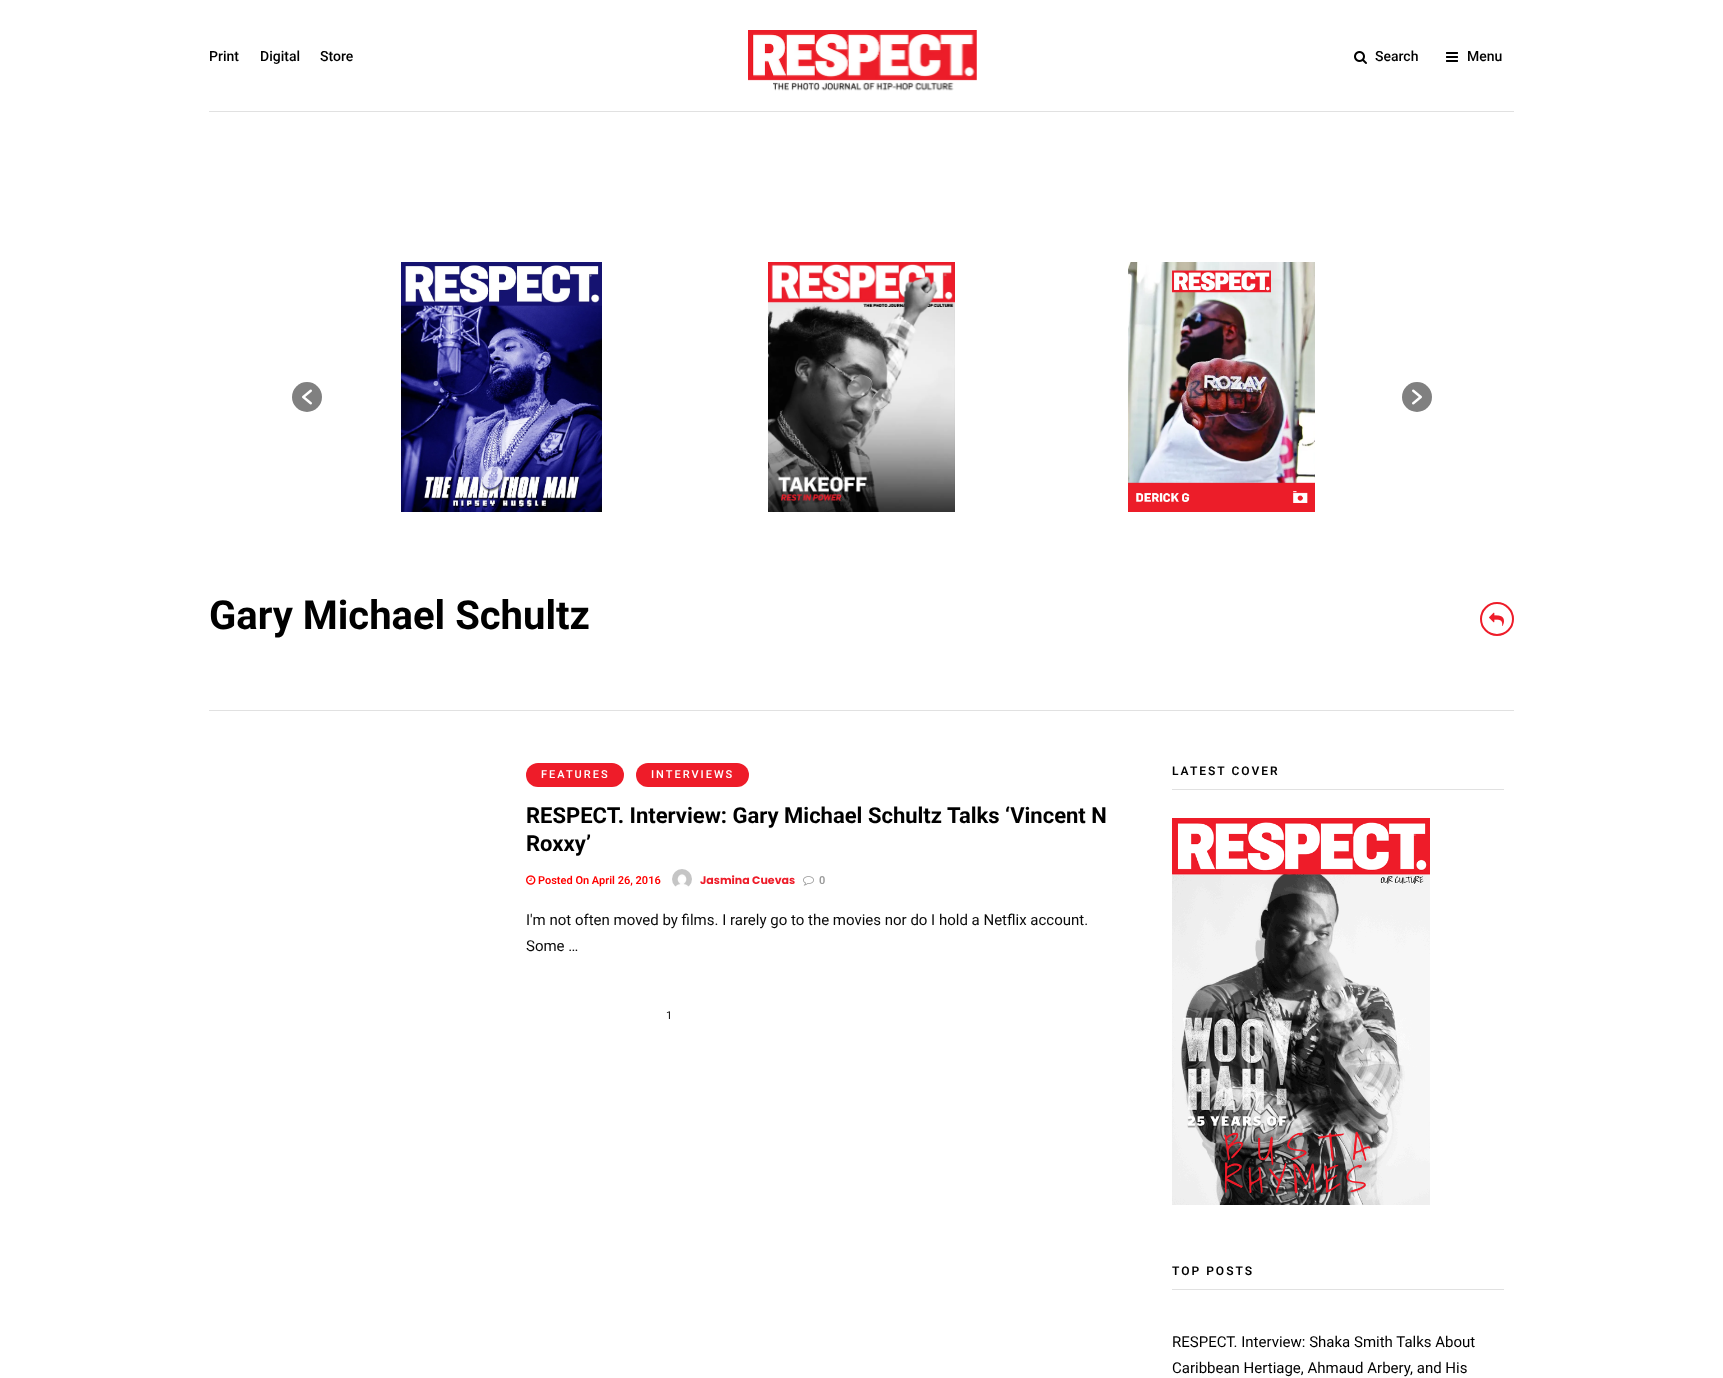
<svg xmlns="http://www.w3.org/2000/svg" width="1723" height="1378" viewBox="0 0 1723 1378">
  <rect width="100%" height="100%" fill="rgb(255,255,255)"/>
  <image x="748" y="30" width="229" height="61" href="pic1.png"/>
  <rect x="209" y="111" width="1305" height="1" fill="rgb(225,225,225)"/>
  <g font-family="Roboto" font-size="14" font-weight="500" fill="rgb(0,0,0)">
    <text x="209" y="61">Print</text>
    <text x="260" y="61">Digital</text>
    <text x="320" y="61">Store</text>
  </g>
  <image x="1354" y="51" width="13" height="13" href="pic2.png"/>
  <text x="1375" y="61" font-family="Roboto" font-size="14" font-weight="500" fill="rgb(0,0,0)">Search</text>
  <image x="1446" y="52" width="12" height="10" href="pic3.png"/>
  <text x="1467" y="61" font-family="Roboto" font-size="14" font-weight="500" fill="rgb(0,0,0)">Menu</text>
  <circle cx="307" cy="397" r="15" fill="rgb(128,128,128)"/>
  <image x="302" y="389" width="10" height="16" href="pic4.png"/>
  <image x="401" y="262" width="201" height="250" href="pic5.png"/>
  <image x="768" y="262" width="187" height="250" href="pic6.png"/>
  <image x="1128" y="262" width="187" height="250" href="pic7.png"/>
  <circle cx="1417" cy="397" r="15" fill="rgb(128,128,128)"/>
  <image x="1412" y="389" width="10" height="16" href="pic8.png"/>
  <rect x="209" y="710" width="1305" height="1" fill="rgb(225,225,225)"/>
  <text x="209" y="629" font-family="Roboto" font-size="40" font-weight="bold" fill="rgb(0,0,0)">Gary Michael Schultz</text>
  <circle cx="1497" cy="619" r="16" fill="none" stroke="rgb(238,28,41)" stroke-width="2"/>
  <image x="1489" y="612" width="15" height="14" href="pic9.png"/>
  <rect x="526" y="763" width="98" height="24" rx="12" fill="rgb(238,28,41)"/>
  <text x="541" y="778" font-family="Roboto" font-size="11" font-weight="500" letter-spacing="2" fill="rgb(255,255,255)">FEATURES</text>
  <rect x="636" y="763" width="113" height="24" rx="12" fill="rgb(238,28,41)"/>
  <text x="651" y="778" font-family="Roboto" font-size="11" font-weight="500" letter-spacing="2" fill="rgb(255,255,255)">INTERVIEWS</text>
  <g font-family="Roboto" font-size="22" font-weight="bold" fill="rgb(0,0,0)">
    <text>
      <tspan x="526" y="823">RESPECT. Interview: Gary Michael Schultz Talks ‘Vincent N</tspan>
      <tspan x="526" y="851">Roxxy’</tspan>
    </text>
  </g>
  <image x="526" y="875" width="10" height="10" href="pic10.png"/>
  <text x="538" y="884" font-family="Roboto" font-size="11" font-weight="600" fill="rgb(255,0,0)">Posted On April 26, 2016</text>
  <image x="672" y="869" width="20" height="18" href="pic11.png"/>
  <text x="700" y="884" font-family="Poppins" font-size="11" font-weight="bold" fill="rgb(238,28,41)">Jasmina Cuevas</text>
  <image x="803" y="876" width="11" height="10" href="pic12.png"/>
  <text x="819" y="884" font-family="Roboto" font-size="11" font-weight="600" fill="rgb(153,153,153)">0</text>
  <g font-family="Roboto" font-size="15" fill="rgb(10,10,10)">
    <text>
      <tspan x="526" y="925">I'm not often moved by films. I rarely go to the movies nor do I hold a Netflix account.</tspan>
      <tspan x="526" y="951">Some …</tspan>
    </text>
  </g>
  <text x="666" y="1019" font-family="Roboto" font-size="11" fill="rgb(10,10,10)">1</text>
  <rect x="1172" y="789" width="332" height="1" fill="rgb(225,225,225)"/>
  <text x="1172" y="775" font-family="Roboto" font-size="12" font-weight="600" letter-spacing="2" fill="rgb(0,0,0)">LATEST COVER</text>
  <image x="1172" y="818" width="258" height="387" href="pic13.png"/>
  <rect x="1172" y="1289" width="332" height="1" fill="rgb(225,225,225)"/>
  <text x="1172" y="1275" font-family="Roboto" font-size="12" font-weight="600" letter-spacing="2" fill="rgb(0,0,0)">TOP POSTS</text>
  <g font-family="Roboto" font-size="15" fill="rgb(0,0,0)">
    <text>
      <tspan x="1172" y="1347">RESPECT. Interview: Shaka Smith Talks About</tspan>
      <tspan x="1172" y="1373">Caribbean Hertiage, Ahmaud Arbery, and His</tspan>
    </text>
  </g>
</svg>
